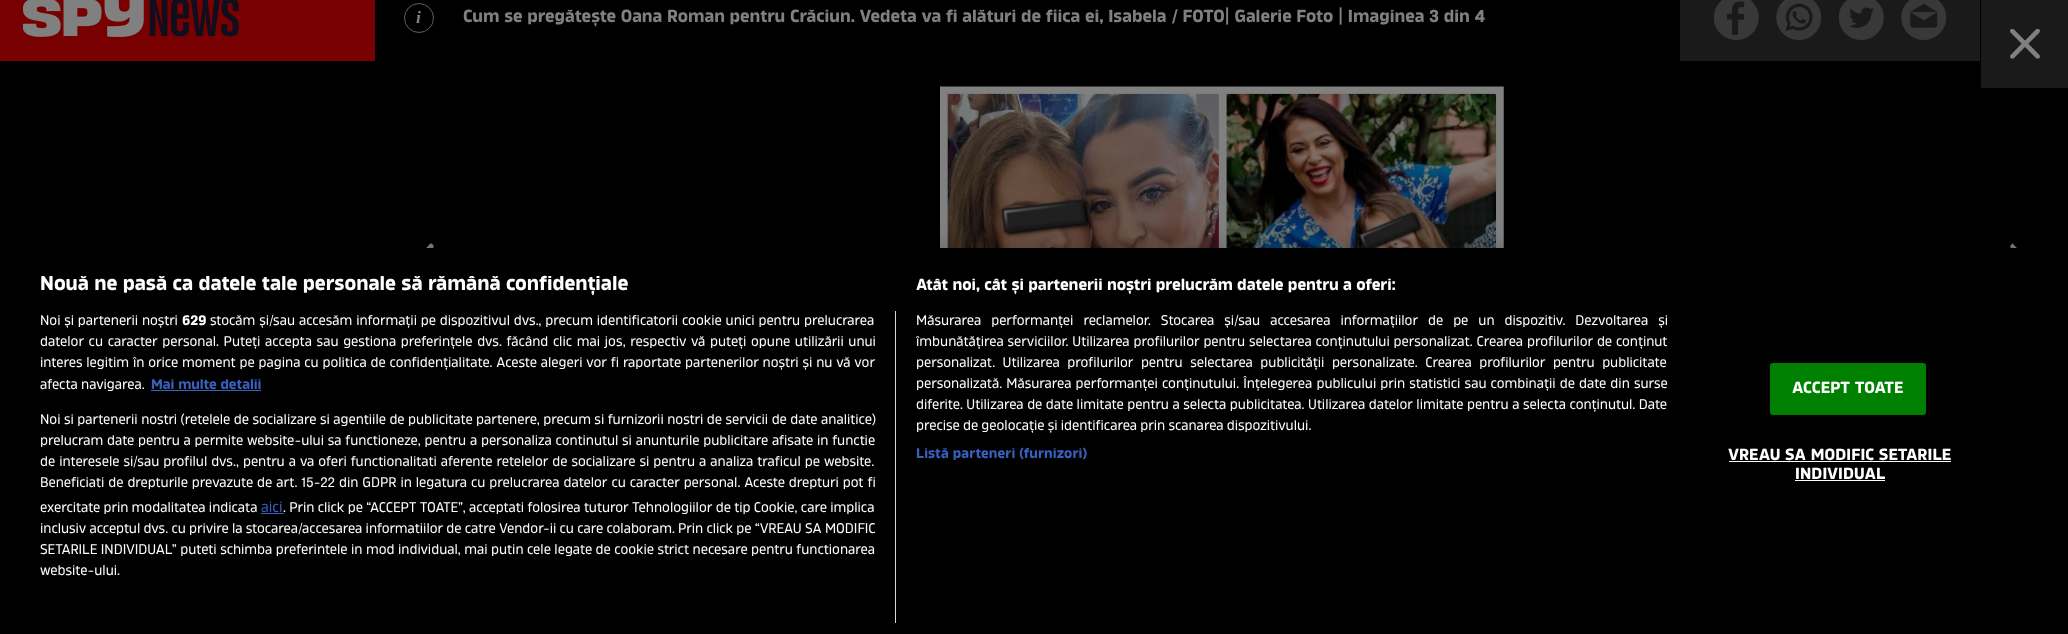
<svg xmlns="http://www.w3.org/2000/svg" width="2068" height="634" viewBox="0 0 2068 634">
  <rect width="100%" height="100%" fill="rgb(0,0,0)"/>
  <rect x="0" y="0" width="375" height="61" fill="rgb(121,0,0)"/>
  <image x="23" y="0" width="216" height="37" href="pic1.png"/>
  <circle cx="419" cy="18" r="14.5" fill="none" stroke="rgb(96,96,96)"/>
  <text x="416" y="23" font-family="Liberation Serif" font-size="17.5" font-weight="bold" font-style="italic" fill="rgb(128,128,128)">i</text>
  <text x="463" y="22" font-family="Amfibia" font-size="17.5" font-weight="bold" fill="rgb(128,128,128)">Cum se pregătește Oana Roman pentru Crăciun. Vedeta va fi alături de fiica ei, Isabela / FOTO| Galerie Foto | Imaginea 3 din 4</text>
  <image x="940" y="86" width="564" height="162" href="pic2.png"/>
  <path d="M433 300C434 299 434 298 433 297L410 272L433 248C434 247 434 246 433 245C432 243 430 243 429 245L404 271C404 272 404 273 404 274L429 300C430 302 432 302 433 300Z" fill="rgb(128,128,128)" fill-rule="evenodd"/>
  <path d="M2011 300C2010 299 2010 298 2011 297L2034 272L2011 248C2010 247 2010 246 2011 245C2012 243 2013 243 2014 245L2039 271C2040 272 2040 273 2039 274L2014 300C2013 302 2012 302 2011 300Z" fill="rgb(128,128,128)" fill-rule="evenodd"/>
  <rect x="1680" y="0" width="300" height="61" fill="rgb(26,26,26)"/>
  <image x="1714" y="0" width="45" height="40" href="pic3.png"/>
  <image x="1776" y="0" width="45" height="40" href="pic4.png"/>
  <image x="1839" y="0" width="45" height="40" href="pic5.png"/>
  <image x="1901" y="0" width="45" height="40" href="pic6.png"/>
  <rect x="1981" y="0" width="87" height="88" fill="rgb(26,26,26)"/>
  <image x="2010" y="29" width="30" height="30" href="pic7.png"/>
  <rect x="0" y="248" width="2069" height="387" fill="rgba(0,0,0,0.2)" filter="blur(11px)"/>
  <rect x="404" y="248" width="1636" height="54" fill="rgb(0,0,0)"/>
  <text x="40" y="290" font-family="Amfibia" font-size="20" font-weight="bold" fill="rgb(255,255,255)">Nouă ne pasă ca datele tale personale să rămână confidențiale</text>
  <text x="916" y="290" font-family="Amfibia" font-size="16" font-weight="bold" fill="rgb(255,255,255)">Atât noi, cât și partenerii noștri prelucrăm datele pentru a oferi:</text>
  <g font-family="Amfibia" font-size="14" fill="rgb(255,255,255)">
    <text>
      <tspan x="916" y="325" word-spacing="6.75">Măsurarea performanței reclamelor. Stocarea și/sau accesarea informațiilor de pe un dispozitiv. Dezvoltarea și</tspan>
      <tspan x="916" y="346" word-spacing="0.6">îmbunătățirea serviciilor. Utilizarea profilurilor pentru selectarea conținutului personalizat. Crearea profilurilor de conținut</tspan>
      <tspan x="916" y="367" word-spacing="4.25">personalizat. Utilizarea profilurilor pentru selectarea publicității personalizate. Crearea profilurilor pentru publicitate</tspan>
      <tspan x="916" y="388" word-spacing="0.9">personalizată. Măsurarea performanței conținutului. Înțelegerea publicului prin statistici sau combinații de date din surse</tspan>
      <tspan x="916" y="409" word-spacing="0.3">diferite. Utilizarea de date limitate pentru a selecta publicitatea. Utilizarea datelor limitate pentru a selecta conținutul. Date</tspan>
      <tspan x="916" y="430">precise de geolocație și identificarea prin scanarea dispozitivului.</tspan>
    </text>
  </g>
  <text x="916" y="458" font-family="Amfibia" font-size="14" font-weight="bold" letter-spacing="0.15" fill="rgb(56,96,190)">Listă parteneri (furnizori)</text>
  <rect x="895" y="311" width="1" height="312" fill="rgb(216,216,216)"/>
  <text x="40" y="325" word-spacing="0.5" font-family="Amfibia" font-size="14" fill="rgb(255,255,255)">Noi și partenerii noștri</text>
  <text x="182" y="325" font-family="Amfibia" font-size="14" font-weight="bold" fill="rgb(255,255,255)">629</text>
  <g font-family="Amfibia" font-size="14" fill="rgb(255,255,255)">
    <text x="210" y="325" word-spacing="0.6">stocăm și/sau accesăm informații pe dispozitivul dvs., precum identificatorii cookie unici pentru prelucrarea</text>
    <text>
      <tspan x="40" y="346" word-spacing="1.4">datelor cu caracter personal. Puteți accepta sau gestiona preferințele dvs. făcând clic mai jos, respectiv vă puteți opune utilizării unui</tspan>
      <tspan x="40" y="367" word-spacing="0.6">interes legitim în orice moment pe pagina cu politica de confidențialitate. Aceste alegeri vor fi raportate partenerilor noștri și nu vă vor</tspan>
      <tspan x="40" y="389">afecta navigarea.</tspan>
    </text>
  </g>
  <text x="151" y="389" font-family="Amfibia" font-size="14" font-weight="bold" fill="rgb(56,96,190)">Mai multe detalii</text>
  <rect x="151" y="390" width="110" height="1" fill="rgb(56,96,190)"/>
  <g font-family="Amfibia" font-size="14" fill="rgb(255,255,255)">
    <text>
      <tspan x="40" y="424" word-spacing="0.25">Noi si partenerii nostri (retelele de socializare si agentiile de publicitate partenere, precum si furnizorii nostri de servicii de date analitice)</tspan>
      <tspan x="40" y="445" word-spacing="0.5">prelucram date pentru a permite website-ului sa functioneze, pentru a personaliza continutul si anunturile publicitare afisate in functie</tspan>
      <tspan x="40" y="466" word-spacing="0.75">de interesele si/sau profilul dvs., pentru a va oferi functionalitati aferente retelelor de socializare si pentru a analiza traficul pe website.</tspan>
      <tspan x="40" y="487" word-spacing="0.7">Beneficiati de drepturile prevazute de art. 15-22 din GDPR in legatura cu prelucrarea datelor cu caracter personal. Aceste drepturi pot fi</tspan>
      <tspan x="40" y="512">exercitate prin modalitatea indicata</tspan>
    </text>
  </g>
  <text x="261" y="512" font-family="Amfibia" font-size="15" fill="rgb(56,96,190)">aici</text>
  <rect x="261" y="513" width="23" height="1" fill="rgb(56,96,190)"/>
  <g font-family="Amfibia" font-size="14" fill="rgb(255,255,255)">
    <text x="283" y="512" word-spacing="0.1">. Prin click pe “ACCEPT TOATE”, acceptati folosirea tuturor Tehnologiilor de tip Cookie, care implica</text>
    <text>
      <tspan x="40" y="533">inclusiv acceptul dvs. cu privire la stocarea/accesarea informatiilor de catre Vendor-ii cu care colaboram. Prin click pe “VREAU SA MODIFIC</tspan>
      <tspan x="40" y="554" word-spacing="0.25">SETARILE INDIVIDUAL” puteti schimba preferintele in mod individual, mai putin cele legate de cookie strict necesare pentru functionarea</tspan>
      <tspan x="40" y="575">website-ului.</tspan>
    </text>
  </g>
  <rect x="1770.5" y="363.5" width="155" height="51" rx="2" fill="rgb(0,128,0)" stroke="rgb(0,128,0)"/>
  <g font-family="Amfibia" font-size="16.25" font-weight="bold" letter-spacing="0.15" fill="rgb(255,255,255)">
    <text x="1792" y="393">ACCEPT TOATE</text>
    <text x="1728" y="460">VREAU SA MODIFIC SETARILE</text>
  </g>
  <rect x="1729" y="461" width="222" height="1" fill="rgb(255,255,255)"/>
  <text x="1795" y="479" font-family="Amfibia" font-size="16.25" font-weight="bold" letter-spacing="0.15" fill="rgb(255,255,255)">INDIVIDUAL</text>
  <rect x="1795" y="480" width="90" height="1" fill="rgb(255,255,255)"/>
</svg>
